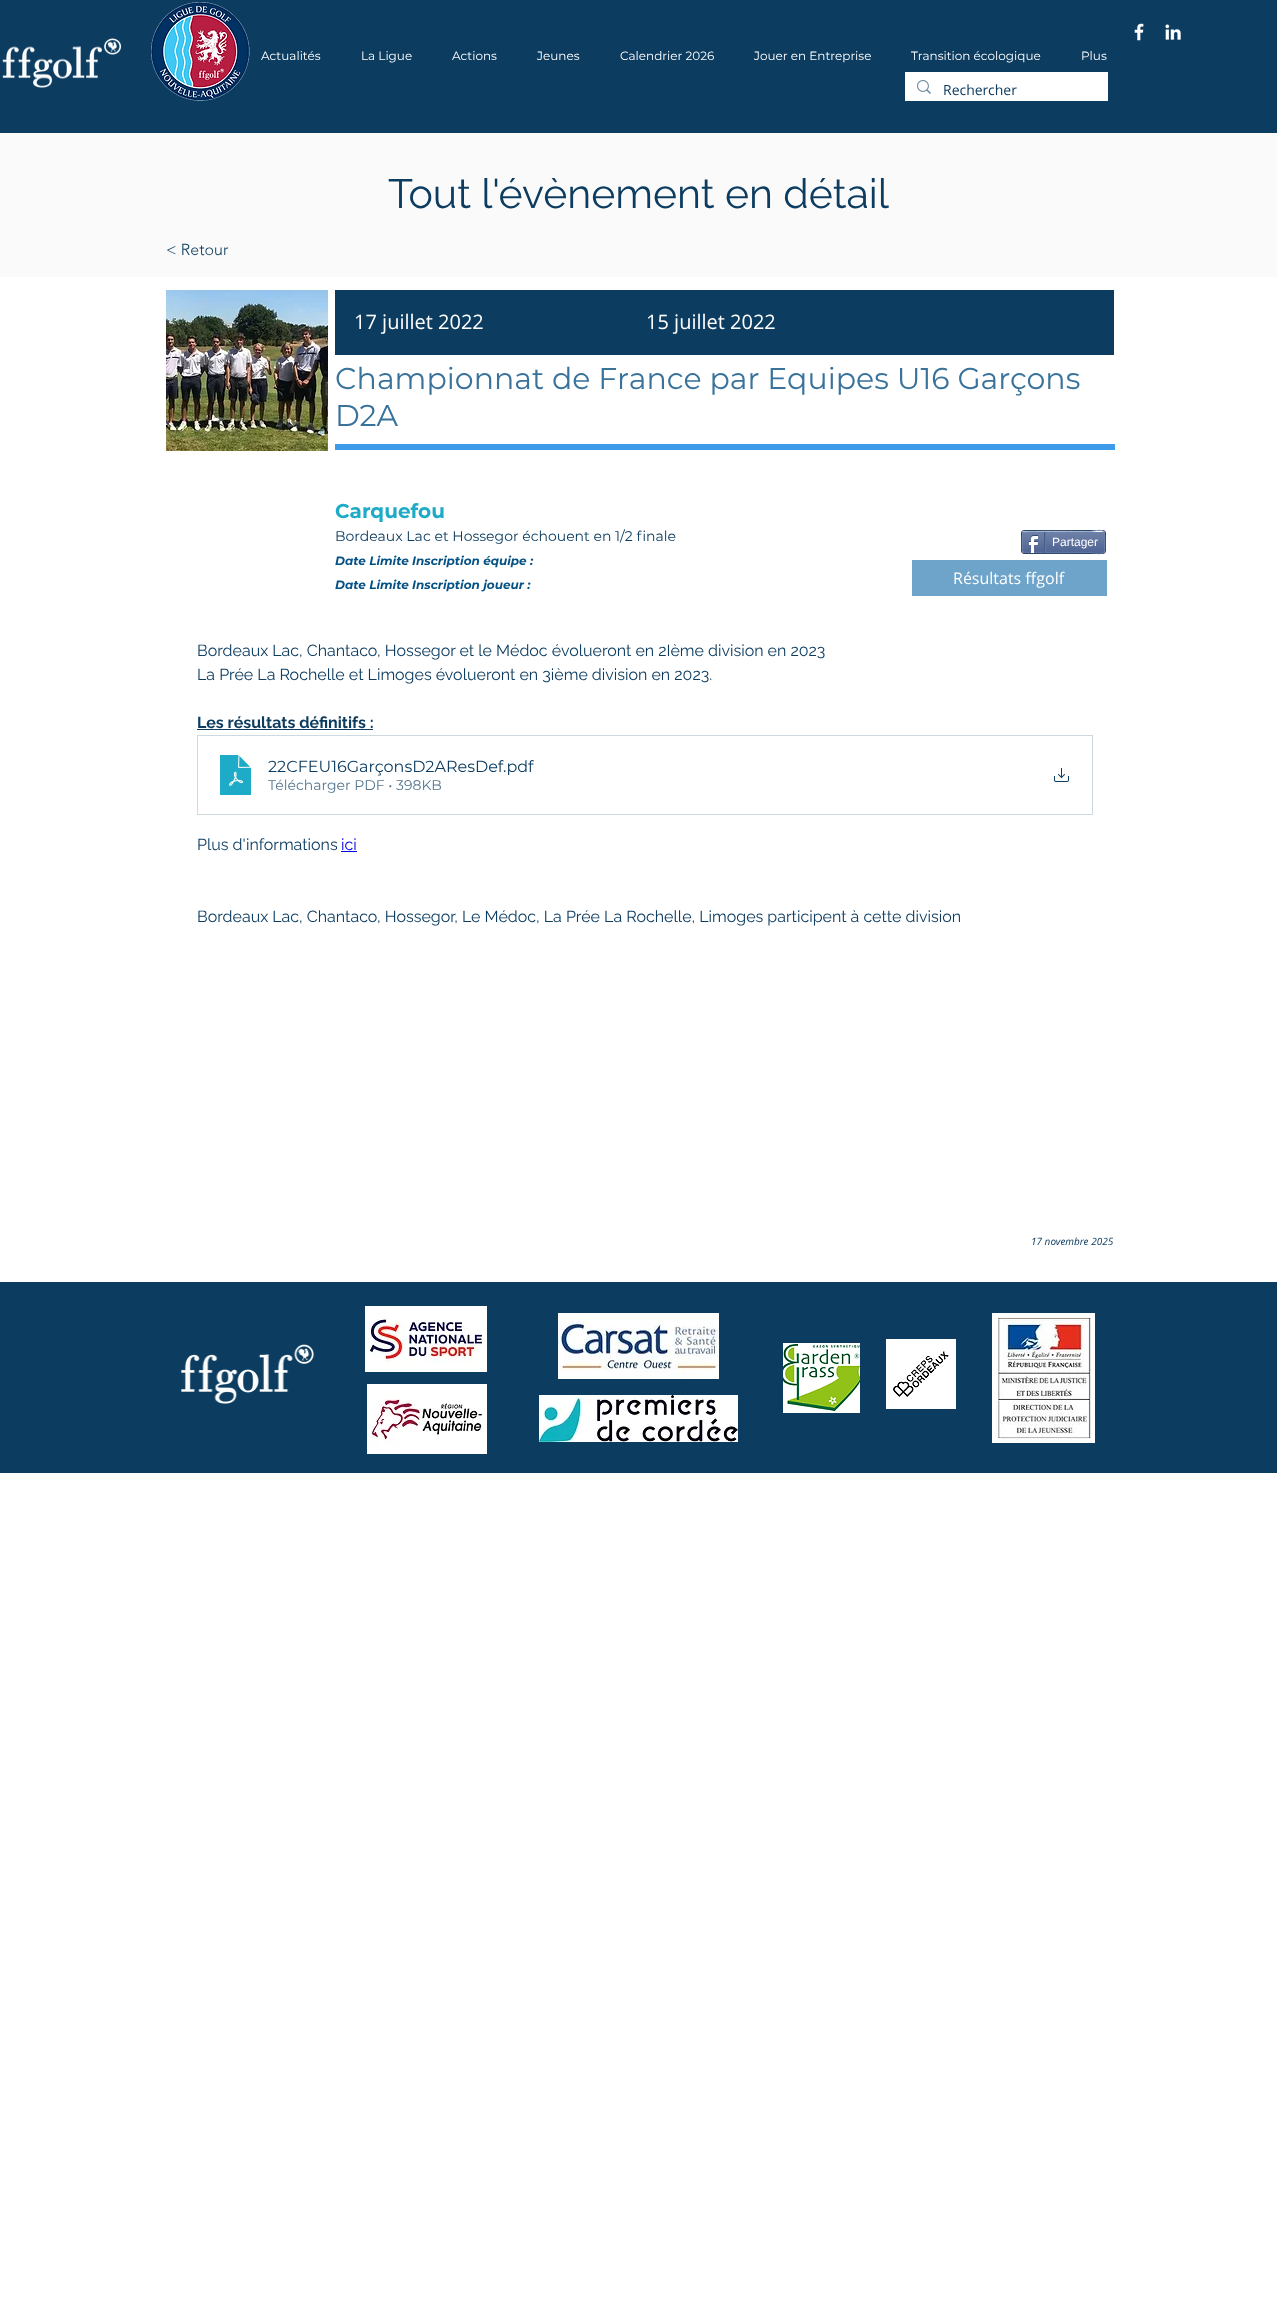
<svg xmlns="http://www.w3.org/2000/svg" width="1277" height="2318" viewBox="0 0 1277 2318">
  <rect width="100%" height="100%" fill="rgb(255,255,255)"/>
  <rect x="0" y="0" width="1277" height="133" fill="rgb(12,60,96)"/>
  <image x="151" y="2" width="99" height="99" href="pic1.png"/>
  <image x="1134" y="23" width="10" height="18" href="pic2.png"/>
  <image x="1165" y="24" width="16" height="16" href="pic3.png"/>
  <image x="2" y="38" width="120" height="50" href="pic4.png"/>
  <g font-family="Montserrat" font-size="12" fill="rgb(255,255,255)">
    <text x="261" y="60">Actualités</text>
    <text x="361" y="60">La Ligue</text>
    <text x="452" y="60">Actions</text>
    <text x="537" y="60">Jeunes</text>
    <text x="620" y="60">Calendrier 2026</text>
    <text x="754" y="60">Jouer en Entreprise</text>
    <text x="911" y="60">Transition écologique</text>
    <text x="1081" y="60">Plus</text>
  </g>
  <rect x="905" y="72" width="203" height="29" fill="rgb(255,255,255)"/>
  <image x="917" y="80" width="14" height="14" href="pic5.png"/>
  <text x="943" y="95" font-family="Open Sans" font-size="14" fill="rgb(12,60,96)">Rechercher</text>
  <rect x="0" y="133" width="1277" height="144" fill="rgb(250,250,250)"/>
  <text x="388" y="208" font-family="Raleway" font-size="41" fill="rgb(12,60,96)">Tout l'évènement en détail</text>
  <text x="166" y="255" font-family="'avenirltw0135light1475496'" font-size="16" font-weight="300" fill="rgb(12,60,96)">&lt; Retour</text>
  <image x="166" y="290" width="162" height="161" href="pic6.png"/>
  <rect x="335" y="290" width="779" height="65" fill="rgb(12,60,96)"/>
  <g font-family="Open Sans" font-size="20" fill="rgb(255,255,255)">
    <text x="354" y="329">17 juillet 2022</text>
    <text x="646" y="329">15 juillet 2022</text>
  </g>
  <g font-family="Montserrat" font-size="30" fill="rgb(57,114,155)">
    <text>
      <tspan x="335" y="389">Championnat de France par Equipes U16 Garçons</tspan>
      <tspan x="335" y="426">D2A</tspan>
    </text>
  </g>
  <rect x="335" y="444" width="780" height="6" fill="rgb(61,155,233)"/>
  <text x="335" y="518" font-family="Montserrat" font-size="20" font-weight="bold" fill="rgb(30,171,199)">Carquefou</text>
  <text x="335" y="541" font-family="Montserrat" font-size="14" fill="rgb(12,60,96)">Bordeaux Lac et Hossegor échouent en 1/2 finale</text>
  <rect x="1021.5" y="530.5" width="84" height="23" rx="2.5" fill="none" stroke="rgb(45,69,101)"/>
  <image x="1022" y="532" width="83" height="21" href="pic7.png"/>
  <path d="M1023 532C1024 531 1083 531.5 1090 531.5C1094.5 531.5 1100.5 528.5 1104 532" fill="none" stroke="rgb(154,171,198)"/>
  <path d="M1104 532C1105 532.5 1105 551.5 1104 552" fill="none" stroke="rgb(111,131,173)"/>
  <path d="M1104 552C1100.5 555.5 1094.5 552.5 1090 552.5C1083 552.5 1024 553 1023 552" fill="none" stroke="rgb(97,118,163)"/>
  <path d="M1023 552C1022 551.5 1022 532.5 1023 532" fill="none" stroke="rgb(111,131,173)"/>
  <image x="1028" y="535" width="10" height="18" href="pic8.png"/>
  <rect x="1044" y="532" width="1" height="21" fill="rgb(66,94,133)"/>
  <text x="1052" y="546" font-family="Liberation Sans" font-size="12" fill="rgb(255,255,255)">Partager</text>
  <rect x="1045" y="532" width="1" height="20" fill="rgb(97,118,163)"/>
  <g font-family="Montserrat" font-size="12" font-weight="bold" font-style="italic" fill="rgb(4,81,132)">
    <text x="335" y="565">Date Limite Inscription équipe :</text>
    <text x="335" y="589">Date Limite Inscription joueur :</text>
  </g>
  <rect x="912" y="560" width="195" height="36" fill="rgb(110,164,202)"/>
  <text x="953" y="584" font-family="Open Sans" font-size="16" fill="rgb(255,255,255)">Résultats ffgolf</text>
  <g font-family="Raleway" font-size="16" fill="rgb(12,60,96)">
    <text>
      <tspan x="197" y="656">Bordeaux Lac, Chantaco, Hossegor et le Médoc évolueront en 2Ième division en 2023</tspan>
      <tspan x="197" y="680">La Prée La Rochelle et Limoges évolueront en 3ième division en 2023.</tspan>
    </text>
  </g>
  <text x="197" y="728" font-family="Raleway" font-size="16" font-weight="bold" fill="rgb(12,60,96)">Les résultats définitifs :</text>
  <rect x="197" y="729" width="176" height="1" fill="rgb(12,60,96)"/>
  <rect x="197.5" y="735.5" width="895" height="79" fill="none" stroke="rgb(206,216,223)"/>
  <image x="219" y="754" width="33" height="42" href="pic9.png"/>
  <g font-family="Montserrat" font-size="16" fill="rgb(12,60,96)">
    <text x="268" y="772">22CFEU16GarçonsD2AResDef</text>
    <text x="503" y="772">.pdf</text>
  </g>
  <text x="268" y="790" font-family="Montserrat" font-size="14" fill="rgb(85,119,144)">Télécharger PDF • 398KB</text>
  <image x="1054" y="768" width="15" height="14" href="pic10.png"/>
  <text x="197" y="850" font-family="Raleway" font-size="16" fill="rgb(12,60,96)">Plus d'informations</text>
  <text x="341" y="850" font-family="Raleway" font-size="16" fill="rgb(0,0,238)">ici</text>
  <rect x="341" y="851" width="16" height="1" fill="rgb(0,0,238)"/>
  <text x="197" y="922" font-family="Raleway" font-size="16" fill="rgb(12,60,96)">Bordeaux Lac, Chantaco, Hossegor, Le Médoc, La Prée La Rochelle, Limoges participent à cette division</text>
  <text x="1031" y="1245" font-family="Open Sans" font-size="10" font-style="italic" fill="rgb(12,60,96)">17 novembre 2025</text>
  <rect x="0" y="1282" width="1277" height="191" fill="rgb(12,60,96)"/>
  <image x="181" y="1344" width="134" height="60" href="pic11.png"/>
  <image x="365" y="1306" width="122" height="66" href="pic12.png"/>
  <image x="558" y="1313" width="161" height="66" href="pic13.png"/>
  <image x="783" y="1343" width="77" height="70" href="pic14.png"/>
  <image x="886" y="1339" width="70" height="70" href="pic15.png"/>
  <image x="992" y="1313" width="103" height="130" href="pic16.png"/>
  <image x="367" y="1384" width="120" height="70" href="pic17.png"/>
  <image x="539" y="1395" width="199" height="47" href="pic18.png"/>
</svg>
